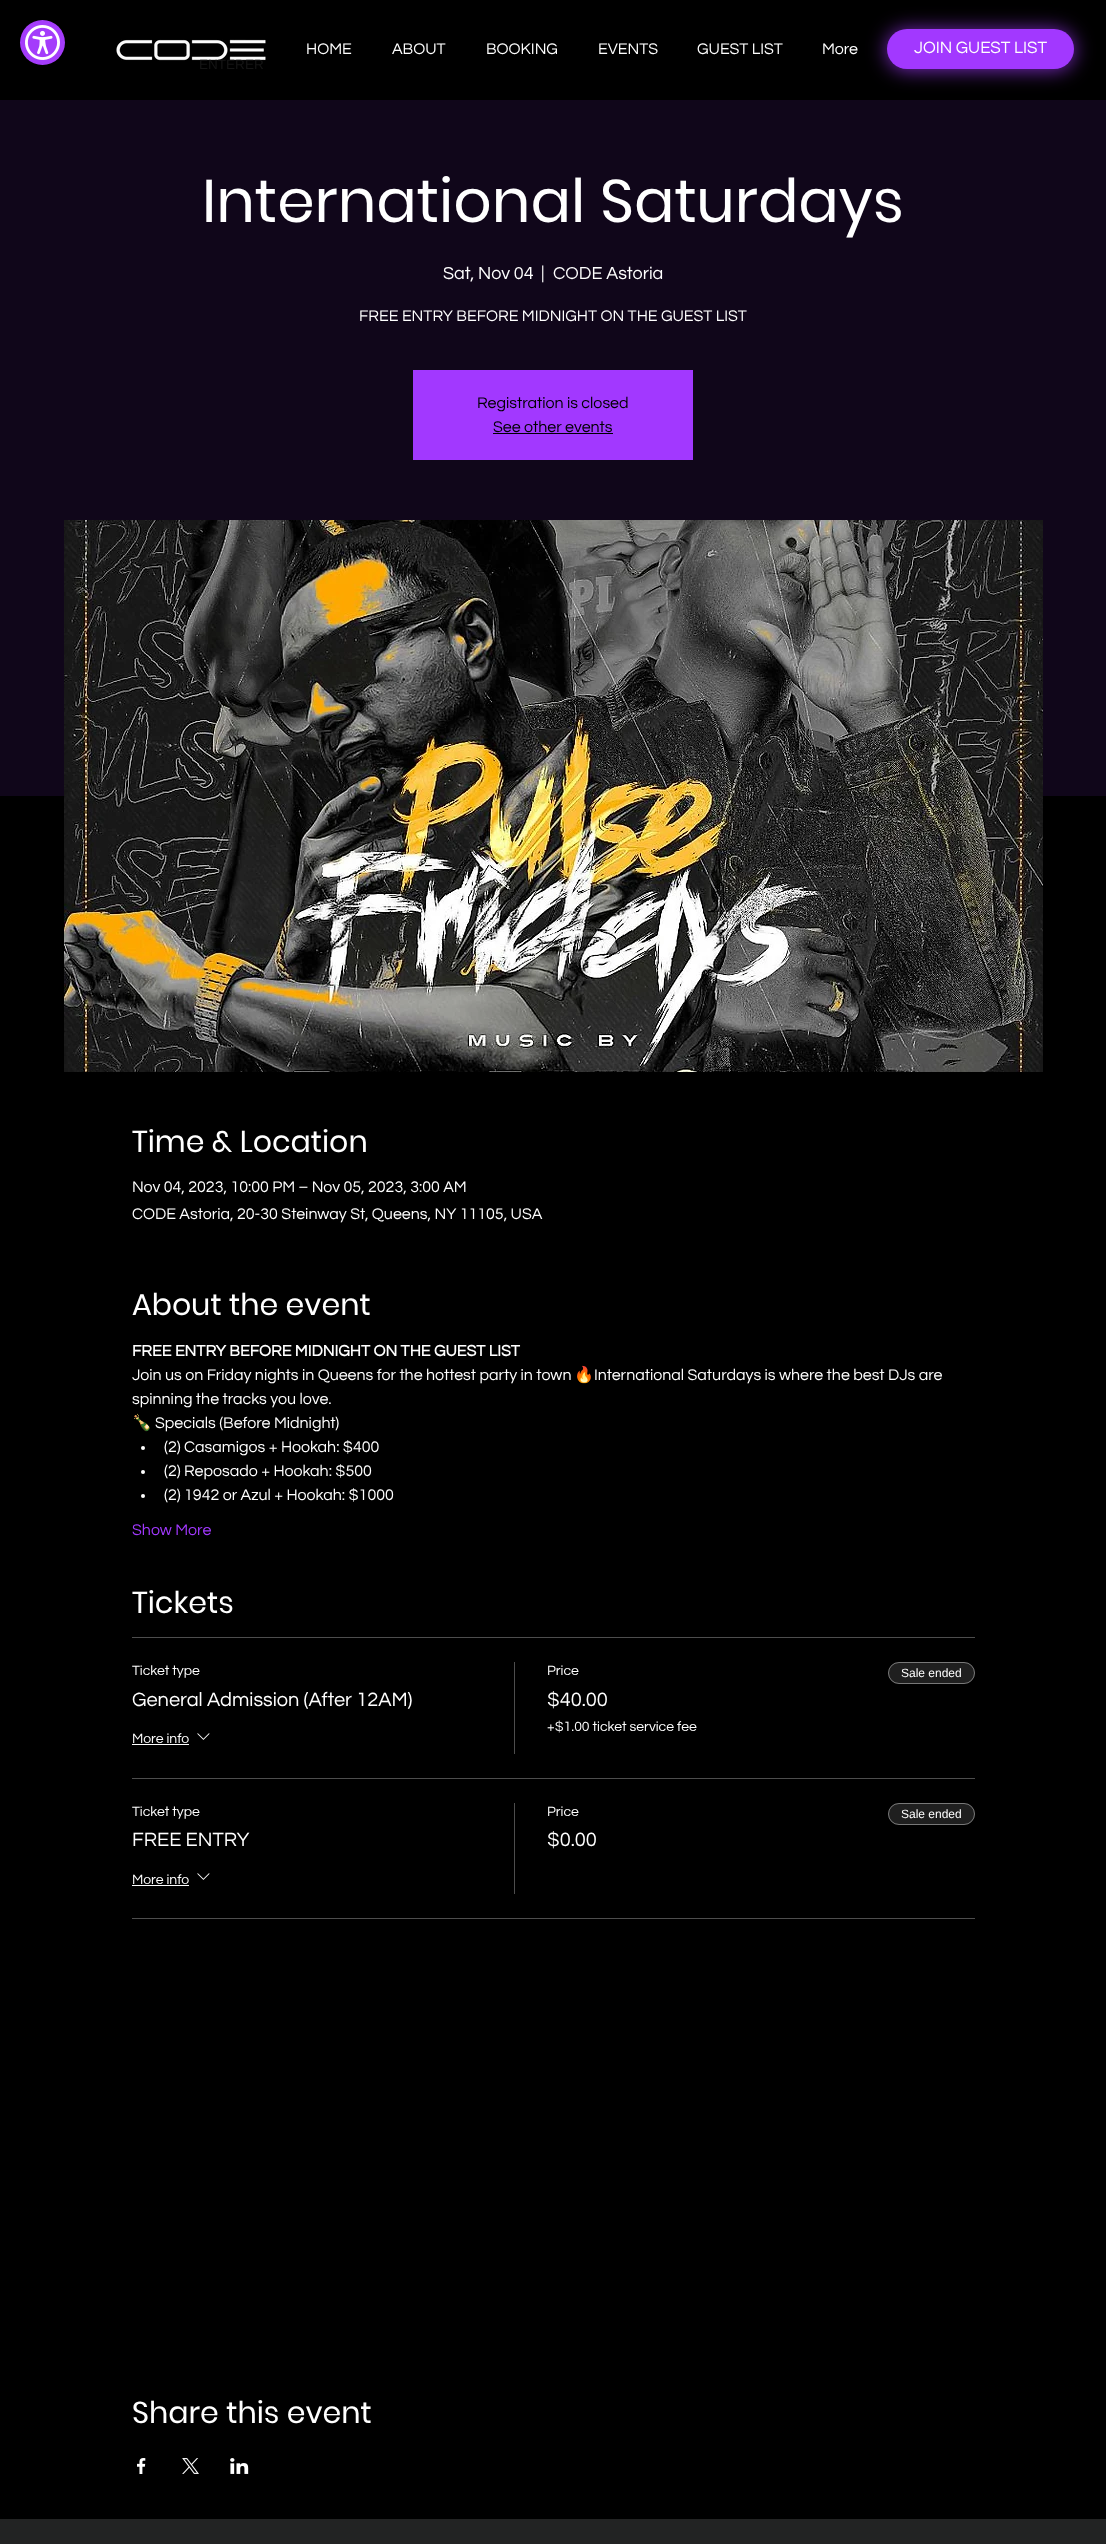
<svg xmlns="http://www.w3.org/2000/svg" width="1106" height="2544" viewBox="0 0 1106 2544">
  <rect width="100%" height="100%" fill="rgb(34,35,35)"/>
  <rect x="0" y="0" width="1106" height="100" fill="rgb(0,0,0)"/>
  <image x="116" y="39" width="150" height="22" href="pic1.png"/>
  <g font-family="Questrial" font-size="16" fill="rgb(255,255,255)">
    <text x="306" y="54">HOME</text>
    <text x="392" y="54">ABOUT</text>
    <text x="486" y="54">BOOKING</text>
    <text x="598" y="54">EVENTS</text>
    <text x="697" y="54">GUEST LIST</text>
    <text x="822" y="54">More</text>
  </g>
  <rect x="0" y="100" width="1106" height="696" fill="rgb(16,6,26)"/>
  <rect x="887" y="30" width="187" height="40" rx="20" fill="rgb(125,43,196)" filter="blur(10px)"/>
  <rect x="887" y="29" width="187" height="40" rx="20" fill="rgb(162,56,255)"/>
  <text x="914" y="53" font-family="Questrial" font-size="17" fill="rgb(255,255,255)">JOIN GUEST LIST</text>
  <text x="202" y="222" font-family="Poppins" font-size="60" fill="rgb(255,255,255)">International Saturdays</text>
  <g font-family="Questrial" font-size="18" fill="rgb(255,255,255)">
    <text x="443" y="279">Sat, Nov 04</text>
    <text x="541" y="279">|</text>
    <text x="553" y="279">CODE Astoria</text>
  </g>
  <text x="359" y="321" font-family="Questrial" font-size="16" fill="rgb(255,255,255)">FREE ENTRY BEFORE MIDNIGHT ON THE GUEST LIST</text>
  <rect x="413" y="370" width="280" height="90" fill="rgb(162,56,255)"/>
  <g font-family="Questrial" font-size="16" fill="rgb(0,0,0)">
    <text x="477" y="408">Registration is closed</text>
    <text x="493" y="432">See other events</text>
  </g>
  <rect x="493" y="433" width="120" height="1" fill="rgb(0,0,0)"/>
  <rect x="0" y="796" width="1106" height="1723" fill="rgb(0,0,0)"/>
  <image x="64" y="520" width="979" height="552" href="pic2.png"/>
  <text x="132" y="1152" font-family="Poppins" font-size="30" fill="rgb(255,255,255)">Time &amp; Location</text>
  <g font-family="Questrial" font-size="16" fill="rgb(255,255,255)">
    <text>
      <tspan x="132" y="1192">Nov 04, 2023, 10:00 PM – Nov 05, 2023, 3:00 AM</tspan>
      <tspan x="132" y="1219">CODE Astoria, 20-30 Steinway St, Queens, NY 11105, USA</tspan>
    </text>
  </g>
  <text x="132" y="1315" font-family="Poppins" font-size="30" fill="rgb(255,255,255)">About the event</text>
  <text x="132" y="1356" font-family="Questrial" font-size="16" font-weight="bold" fill="rgb(255,255,255)">FREE ENTRY BEFORE MIDNIGHT ON THE GUEST LIST</text>
  <text x="132" y="1380" font-family="Questrial" font-size="16" fill="rgb(255,255,255)">Join us on Friday nights in Queens for the hottest party in town</text>
  <text x="574" y="1380" font-family="Noto Color Emoji" font-size="16" fill="rgb(255,255,255)">🔥</text>
  <g font-family="Questrial" font-size="16" fill="rgb(255,255,255)">
    <text x="594" y="1380">International Saturdays is where the best DJs are</text>
    <text x="132" y="1404">spinning the tracks you love.</text>
  </g>
  <text x="132" y="1428" font-family="Noto Color Emoji" font-size="16" fill="rgb(255,255,255)">🍾</text>
  <text x="155" y="1428" font-family="Questrial" font-size="16" fill="rgb(255,255,255)">Specials (Before Midnight)</text>
  <circle cx="143" cy="1448" r="2" fill="rgb(255,255,255)"/>
  <text x="164" y="1452" font-family="Questrial" font-size="16" fill="rgb(255,255,255)">(2) Casamigos + Hookah: $400</text>
  <circle cx="143" cy="1472" r="2" fill="rgb(255,255,255)"/>
  <text x="164" y="1476" font-family="Questrial" font-size="16" fill="rgb(255,255,255)">(2) Reposado + Hookah: $500</text>
  <circle cx="143" cy="1496" r="2" fill="rgb(255,255,255)"/>
  <text x="164" y="1500" font-family="Questrial" font-size="16" fill="rgb(255,255,255)">(2) 1942 or Azul + Hookah: $1000</text>
  <text x="132" y="1535" font-family="Questrial" font-size="16" fill="rgb(162,56,255)">Show More</text>
  <text x="132" y="1613" font-family="Poppins" font-size="30" fill="rgb(255,255,255)">Tickets</text>
  <rect x="132" y="1637" width="843" height="1" fill="rgb(77,77,77)"/>
  <rect x="132" y="1778" width="843" height="1" fill="rgb(77,77,77)"/>
  <text x="132" y="1675" font-family="Questrial" font-size="14" fill="rgb(255,255,255)">Ticket type</text>
  <text x="132" y="1706" font-family="Questrial" font-size="20" fill="rgb(255,255,255)">General Admission (After 12AM)</text>
  <text x="132" y="1743" font-family="Questrial" font-size="14" fill="rgb(255,255,255)">More info</text>
  <rect x="132" y="1744" width="57" height="1" fill="rgb(255,255,255)"/>
  <image x="197" y="1733" width="13" height="7" href="pic3.png"/>
  <rect x="514" y="1662" width="1" height="92" fill="rgb(77,77,77)"/>
  <text x="547" y="1675" font-family="Questrial" font-size="14" fill="rgb(255,255,255)">Price</text>
  <text x="547" y="1706" font-family="Questrial" font-size="20" fill="rgb(255,255,255)">$40.00</text>
  <text x="547" y="1731" font-family="Questrial" font-size="14" fill="rgb(255,255,255)">+$1.00 ticket service fee</text>
  <rect x="888" y="1662" width="87" height="22" rx="11" fill="rgb(31,31,31)"/>
  <rect x="888.5" y="1662.5" width="86" height="21" rx="10.5" fill="none" stroke="rgba(255,255,255,0.4)"/>
  <text x="901" y="1677" font-family="Liberation Sans" font-size="12" fill="rgb(255,255,255)">Sale ended</text>
  <rect x="132" y="1918" width="843" height="1" fill="rgb(77,77,77)"/>
  <text x="132" y="1816" font-family="Questrial" font-size="14" fill="rgb(255,255,255)">Ticket type</text>
  <text x="132" y="1846" font-family="Questrial" font-size="20" fill="rgb(255,255,255)">FREE ENTRY</text>
  <text x="132" y="1884" font-family="Questrial" font-size="14" fill="rgb(255,255,255)">More info</text>
  <rect x="132" y="1885" width="57" height="1" fill="rgb(255,255,255)"/>
  <image x="197" y="1873" width="13" height="7" href="pic3.png"/>
  <rect x="514" y="1803" width="1" height="91" fill="rgb(77,77,77)"/>
  <text x="547" y="1816" font-family="Questrial" font-size="14" fill="rgb(255,255,255)">Price</text>
  <text x="547" y="1846" font-family="Questrial" font-size="20" fill="rgb(255,255,255)">$0.00</text>
  <rect x="888" y="1803" width="87" height="22" rx="11" fill="rgb(31,31,31)"/>
  <rect x="888.5" y="1803.5" width="86" height="21" rx="10.5" fill="none" stroke="rgba(255,255,255,0.4)"/>
  <text x="901" y="1818" font-family="Liberation Sans" font-size="12" fill="rgb(255,255,255)">Sale ended</text>
  <text x="132" y="2423" font-family="Poppins" font-size="30" fill="rgb(255,255,255)">Share this event</text>
  <image x="137" y="2458" width="9" height="16" href="pic4.png"/>
  <image x="182" y="2458" width="17" height="16" href="pic5.png"/>
  <image x="230" y="2458" width="19" height="16" href="pic6.png"/>
  <circle cx="42.5" cy="42.5" r="22.5" fill="rgb(164,60,251)"/>
  <image x="25" y="25" width="35" height="35" href="pic7.png"/>
  <g font-family="Liberation Sans" font-size="13.5" fill="rgb(21,21,21)">
    <text x="199" y="69">ENTER</text>
    <text x="245" y="69">ER</text>
  </g>
</svg>
